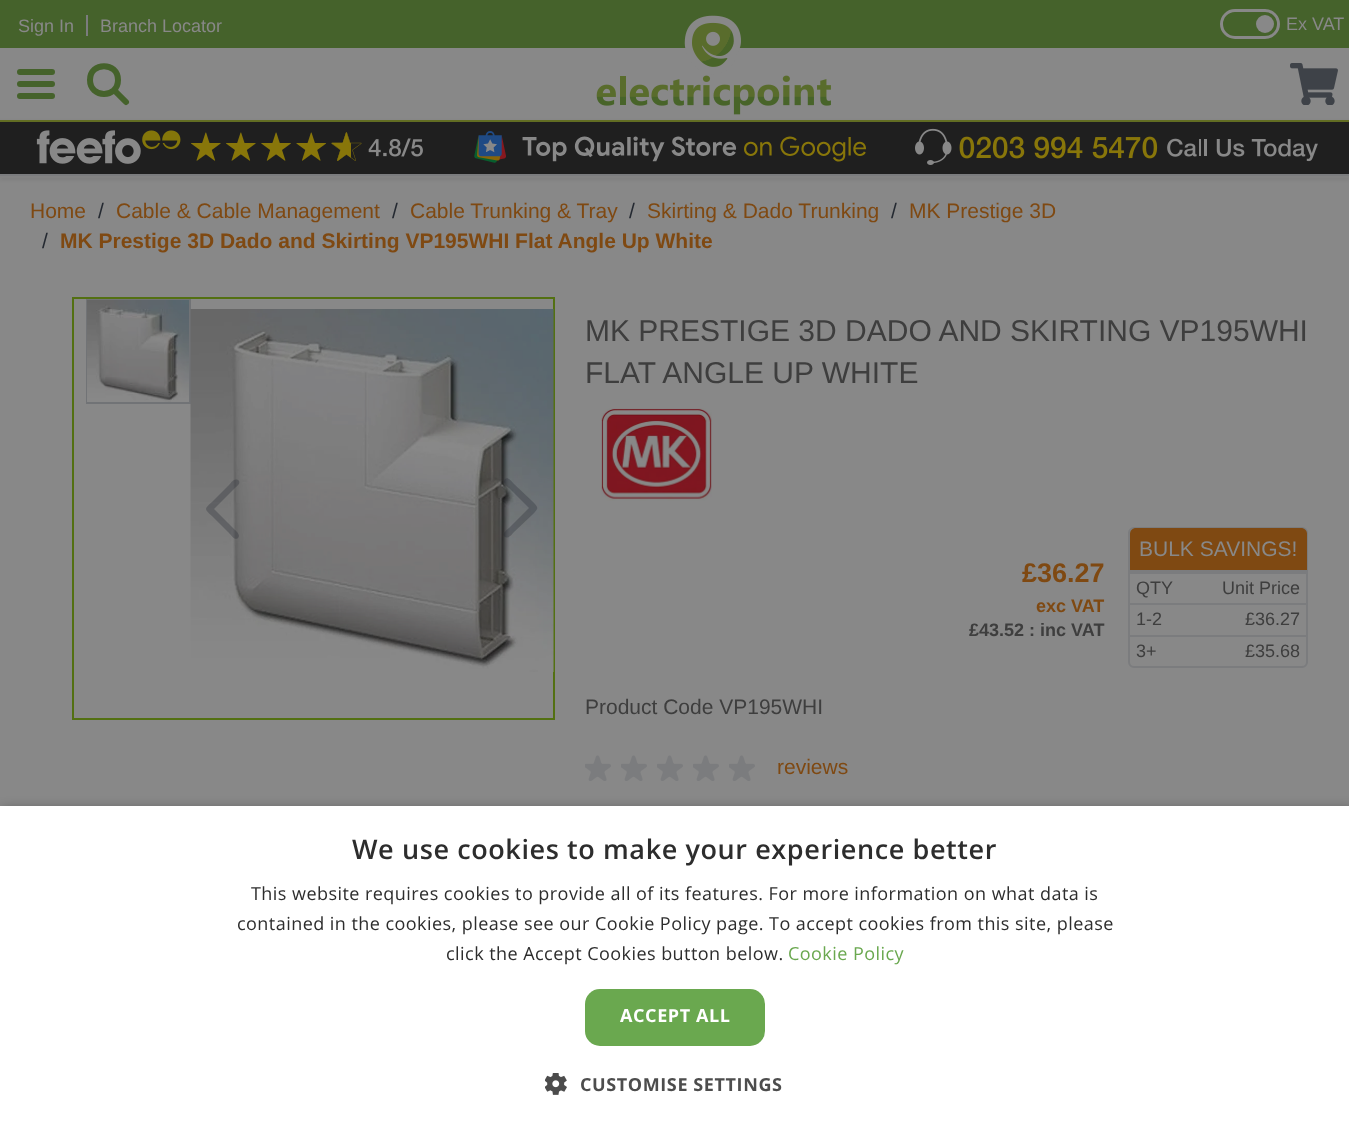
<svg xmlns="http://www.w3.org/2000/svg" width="1349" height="1134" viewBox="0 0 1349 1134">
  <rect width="100%" height="100%" fill="rgb(136,136,136)"/>
  <rect x="0" y="122" width="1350" height="57" fill="rgba(9,9,9,0.1)" filter="blur(2px)"/>
  <rect x="0" y="176" width="1349" height="2" fill="rgb(131,131,131)"/>
  <rect x="0" y="120" width="1349" height="2" fill="rgb(98,109,35)"/>
  <path d="M20 72H52M20 84H52M20 96H52" fill="none" stroke="rgb(69,98,43)" stroke-width="6" stroke-linecap="round" stroke-linejoin="round"/>
  <path d="M126 102L114 90M118 80C118 98.5 90 98.5 90 80C90 61.5 118 61.5 118 80Z" fill="none" stroke="rgb(69,98,43)" stroke-width="6" stroke-linecap="round" stroke-linejoin="round"/>
  <rect x="0" y="0" width="1349" height="48" fill="rgb(69,98,43)"/>
  <image x="596" y="15" width="235" height="100" href="pic1.png"/>
  <image x="1290" y="63" width="48" height="42" href="pic2.png"/>
  <text x="18" y="32" font-family="Liberation Sans" font-size="18" fill="rgb(136,136,136)">Sign In</text>
  <rect x="86" y="15" width="2" height="21" fill="rgb(123,124,126)"/>
  <text x="100" y="32" font-family="Liberation Sans" font-size="18" fill="rgb(136,136,136)">Branch Locator</text>
  <rect x="1221.5" y="10.5" width="57" height="27" rx="13.5" fill="none" stroke="rgb(136,136,136)" stroke-width="3"/>
  <circle cx="1265" cy="24" r="9" fill="rgb(136,136,136)"/>
  <text x="1286" y="30" font-family="Liberation Sans" font-size="18" fill="rgb(136,136,136)">Ex VAT</text>
  <rect x="0" y="122" width="1349" height="52" fill="rgb(31,31,31)"/>
  <rect x="0" y="174" width="1349" height="2" fill="rgb(123,124,126)"/>
  <image x="36" y="130" width="387" height="34" href="pic3.png"/>
  <image x="474" y="131" width="392" height="32" href="pic4.png"/>
  <image x="915" y="128" width="403" height="37" href="pic5.png"/>
  <text x="30" y="218" font-family="Liberation Sans" font-size="21" fill="rgb(127,73,18)">Home</text>
  <text x="98" y="218" font-family="Liberation Sans" font-size="21" fill="rgb(36,41,49)">/</text>
  <text x="116" y="218" font-family="Liberation Sans" font-size="21" fill="rgb(127,73,18)">Cable &amp; Cable Management</text>
  <text x="392" y="218" font-family="Liberation Sans" font-size="21" fill="rgb(36,41,49)">/</text>
  <text x="410" y="218" font-family="Liberation Sans" font-size="21" fill="rgb(127,73,18)">Cable Trunking &amp; Tray</text>
  <text x="629" y="218" font-family="Liberation Sans" font-size="21" fill="rgb(36,41,49)">/</text>
  <text x="647" y="218" font-family="Liberation Sans" font-size="21" fill="rgb(127,73,18)">Skirting &amp; Dado Trunking</text>
  <text x="891" y="218" font-family="Liberation Sans" font-size="21" fill="rgb(36,41,49)">/</text>
  <text x="909" y="218" font-family="Liberation Sans" font-size="21" fill="rgb(127,73,18)">MK Prestige 3D</text>
  <text x="42" y="248" font-family="Liberation Sans" font-size="21" fill="rgb(36,41,49)">/</text>
  <text x="60" y="248" font-family="Liberation Sans" font-size="21" font-weight="bold" fill="rgb(127,73,18)">MK Prestige 3D Dado and Skirting VP195WHI Flat Angle Up White</text>
  <rect x="73" y="298" width="481" height="421" fill="none" stroke="rgb(83,112,18)" stroke-width="2"/>
  <rect x="87" y="300" width="103" height="103" fill="none" stroke="rgb(113,115,118)" stroke-width="2"/>
  <image x="87" y="300" width="102" height="102" href="pic6.png"/>
  <image x="190" y="309" width="364" height="363" href="pic7.png"/>
  <path d="M238 538C241 535 236 531 234 529L214 509L234 489C236 487 242 483 238 480C234 478 231 483 229 485L212 502C204 509 204 509 212 516L229 533C231 535 235 541 238 538Z" fill="rgba(36,41,49,0.3)" fill-rule="evenodd"/>
  <path d="M505 479C502 483 507 486 509 488L529 508L509 528C507 530 501 534 505 537C509 539 512 534 514 532L532 515C539 508 539 508 532 501L514 484C512 482 508 476 505 479Z" fill="rgba(36,41,49,0.3)" fill-rule="evenodd"/>
  <g font-family="Liberation Sans" font-size="30" fill="rgb(62,62,62)">
    <text>
      <tspan x="585" y="341">MK PRESTIGE 3D DADO AND SKIRTING VP195WHI</tspan>
      <tspan x="585" y="383">FLAT ANGLE UP WHITE</tspan>
    </text>
  </g>
  <image x="601" y="408" width="111" height="93" href="pic8.png"/>
  <text x="1022" y="582" font-family="Liberation Sans" font-size="27" font-weight="bold" fill="rgb(127,73,18)">£36.27</text>
  <text x="1036" y="612" font-family="Liberation Sans" font-size="18" font-weight="bold" fill="rgb(127,73,18)">exc VAT</text>
  <text x="969" y="636" font-family="Liberation Sans" font-size="18" font-weight="bold" fill="rgb(62,62,62)">£43.52 : inc VAT</text>
  <rect x="1129" y="528" width="178" height="139" rx="5" fill="none" stroke="rgb(123,124,126)" stroke-width="2"/>
  <path d="M1136 528H1301C1304.5 528 1307 530.5 1307 534V570H1130V534C1130 530.5 1132.5 528 1136 528Z" fill="rgb(127,73,18)"/>
  <rect x="1130" y="570" width="177" height="4" fill="rgb(123,124,126)"/>
  <text x="1139" y="556" font-family="Liberation Sans" font-size="21" fill="rgb(136,136,136)">BULK SAVINGS!</text>
  <g font-family="Liberation Sans" font-size="18" fill="rgb(62,62,62)">
    <text x="1136" y="594">QTY</text>
    <text x="1222" y="594">Unit Price</text>
  </g>
  <rect x="1130" y="603" width="177" height="2" fill="rgb(123,124,126)"/>
  <g font-family="Liberation Sans" font-size="18" fill="rgb(62,62,62)">
    <text x="1136" y="625">1-2</text>
    <text x="1245" y="625">£36.27</text>
  </g>
  <rect x="1130" y="635" width="177" height="2" fill="rgb(123,124,126)"/>
  <g font-family="Liberation Sans" font-size="18" fill="rgb(62,62,62)">
    <text x="1136" y="657">3+</text>
    <text x="1245" y="657">£35.68</text>
  </g>
  <text x="585" y="714" font-family="Liberation Sans" font-size="21" fill="rgb(62,62,62)">Product Code VP195WHI</text>
  <image x="585" y="755" width="26" height="26" href="pic9.png"/>
  <image x="621" y="755" width="26" height="26" href="pic9.png"/>
  <image x="657" y="755" width="26" height="26" href="pic9.png"/>
  <image x="693" y="755" width="26" height="26" href="pic9.png"/>
  <image x="729" y="755" width="26" height="26" href="pic9.png"/>
  <text x="777" y="774" font-family="Liberation Sans" font-size="21" fill="rgb(127,73,18)">reviews</text>
  <rect x="2" y="809" width="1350" height="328" fill="rgba(0,0,0,0.35)" filter="blur(6px)"/>
  <rect x="0" y="806" width="1349" height="328" fill="rgb(255,255,255)"/>
  <text x="352" y="859" font-family="Open Sans" font-size="27" font-weight="600" letter-spacing="0.6" fill="rgb(45,45,45)">We use cookies to make your experience better</text>
  <g font-family="Open Sans" font-size="18" letter-spacing="0.45" fill="rgb(45,45,45)">
    <text x="251" y="900">This website requires cookies to provide all of its features. For more information on what data is</text>
    <text x="237" y="930">contained in the cookies, please see our Cookie Policy page. To accept cookies from this site, please</text>
    <text x="446" y="960">click the Accept Cookies button below.</text>
  </g>
  <text x="788" y="960" font-family="Open Sans" font-size="18" letter-spacing="0.45" fill="rgb(106,168,79)">Cookie Policy</text>
  <rect x="585" y="989" width="180" height="57" rx="15" fill="rgb(106,168,79)"/>
  <text x="620" y="1022" font-family="Open Sans" font-size="18" font-weight="bold" letter-spacing="0.6" fill="rgb(255,255,255)">ACCEPT ALL</text>
  <image x="545" y="1073" width="22" height="22" href="pic10.png"/>
  <text x="580" y="1091" font-family="Open Sans" font-size="18" font-weight="bold" letter-spacing="0.6" fill="rgb(77,77,77)">CUSTOMISE SETTINGS</text>
</svg>
